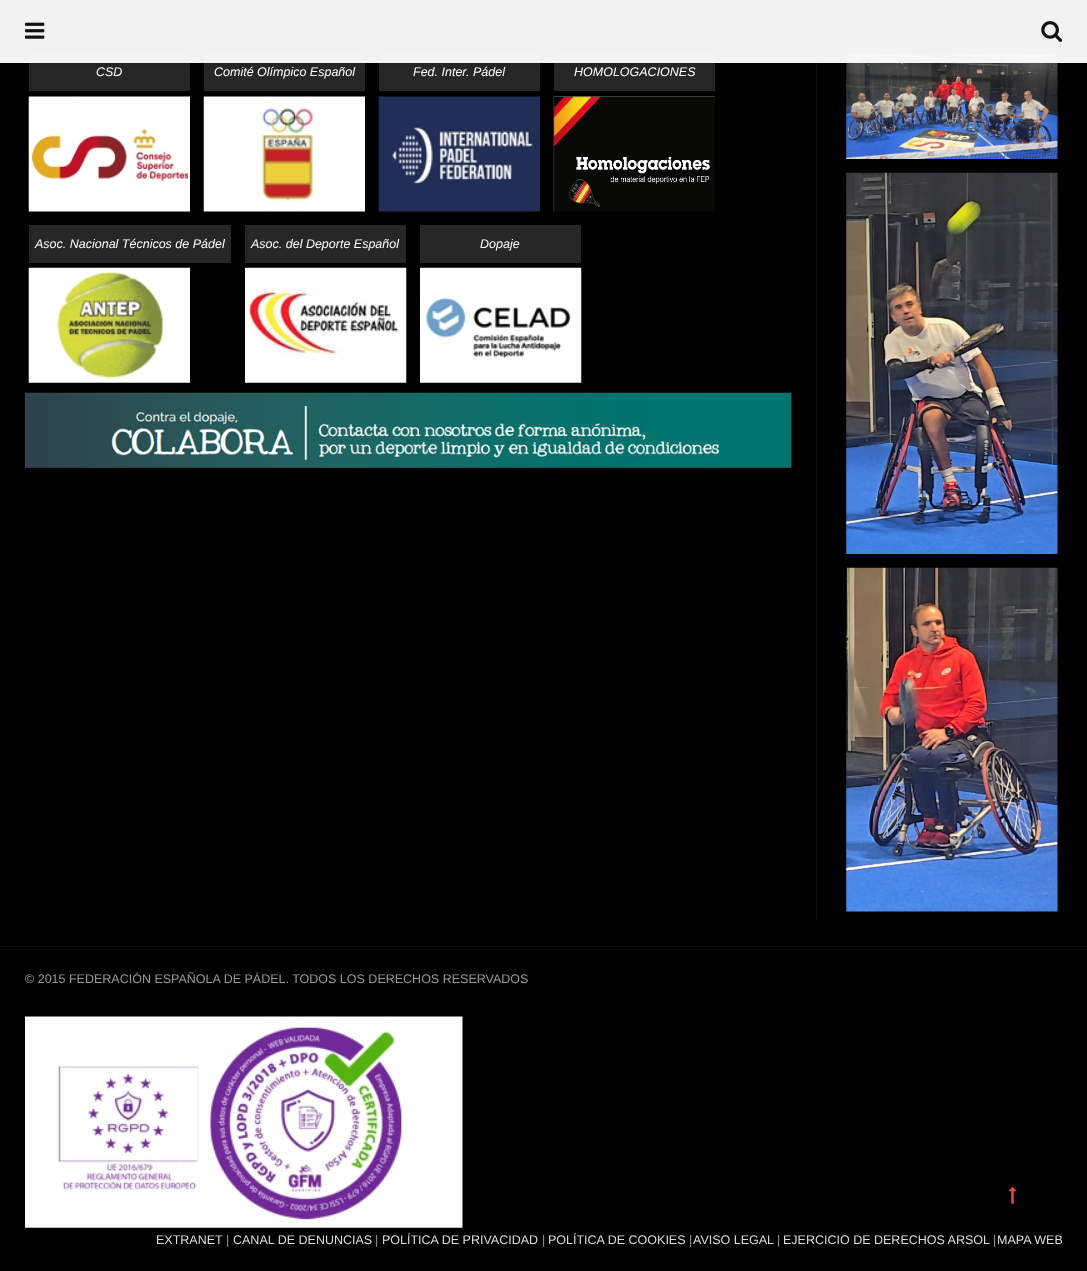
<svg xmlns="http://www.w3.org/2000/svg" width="1087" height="1271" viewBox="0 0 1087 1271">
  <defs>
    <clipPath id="clip1"><path d="M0 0H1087V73H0ZM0 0H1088V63H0Z" clip-rule="evenodd"/></clipPath>
  </defs>
  <rect width="100%" height="100%" fill="rgb(0,0,0)"/>
  <rect x="25" y="28" width="766" height="4" fill="rgb(17,17,17)"/>
  <rect x="29" y="54" width="161" height="37" fill="rgb(39,39,39)"/>
  <rect x="204" y="54" width="161" height="37" fill="rgb(39,39,39)"/>
  <rect x="379" y="54" width="161" height="37" fill="rgb(39,39,39)"/>
  <rect x="554" y="54" width="161" height="37" fill="rgb(39,39,39)"/>
  <rect x="816" y="0" width="1" height="921" fill="rgb(17,17,17)"/>
  <rect x="843" y="28" width="220" height="4" fill="rgb(17,17,17)"/>
  <image x="846" y="54" width="212" height="105" href="pic11.png"/>
  <g clip-path="url(#clip1)">
    <rect x="0" y="0" width="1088" height="63" fill="rgba(0,0,0,0.2)" filter="blur(3px)"/>
  </g>
  <rect x="0" y="0" width="1087" height="63" fill="rgba(255,255,255,0.95)"/>
  <image x="25" y="22" width="20" height="17" href="pic1.png"/>
  <image x="1041" y="21" width="22" height="21" href="pic2.png"/>
  <text x="96" y="76" font-family="Liberation Sans" font-size="12.5" font-style="italic" fill="rgb(255,255,255)">CSD</text>
  <image x="28" y="96" width="162" height="116" href="pic3.png"/>
  <text x="214" y="76" font-family="Liberation Sans" font-size="12.5" font-style="italic" fill="rgb(255,255,255)">Comité Olímpico Español</text>
  <image x="203" y="96" width="162" height="116" href="pic4.png"/>
  <text x="413" y="76" font-family="Liberation Sans" font-size="12.5" font-style="italic" fill="rgb(255,255,255)">Fed. Inter. Pádel</text>
  <image x="378" y="96" width="162" height="116" href="pic5.png"/>
  <text x="574" y="76" font-family="Liberation Sans" font-size="12.5" font-style="italic" fill="rgb(255,255,255)">HOMOLOGACIONES</text>
  <image x="553" y="96" width="162" height="116" href="pic6.png"/>
  <rect x="29" y="225" width="202" height="38" fill="rgb(39,39,39)"/>
  <text x="35" y="248" font-family="Liberation Sans" font-size="12.5" font-style="italic" fill="rgb(255,255,255)">Asoc. Nacional Técnicos de Pádel</text>
  <image x="28" y="267" width="162" height="116" href="pic7.png"/>
  <rect x="245" y="225" width="161" height="38" fill="rgb(39,39,39)"/>
  <text x="251" y="248" font-family="Liberation Sans" font-size="12.5" font-style="italic" fill="rgb(255,255,255)">Asoc. del Deporte Español</text>
  <image x="245" y="267" width="162" height="116" href="pic8.png"/>
  <rect x="420" y="225" width="161" height="38" fill="rgb(39,39,39)"/>
  <text x="480" y="248" font-family="Liberation Sans" font-size="12.5" font-style="italic" fill="rgb(255,255,255)">Dopaje</text>
  <image x="420" y="267" width="162" height="116" href="pic9.png"/>
  <image x="25" y="392" width="767" height="76" href="pic10.png"/>
  <image x="846" y="172" width="212" height="382" href="pic12.png"/>
  <image x="846" y="567" width="212" height="345" href="pic13.png"/>
  <rect x="0" y="946" width="1087" height="1" fill="rgb(17,17,17)"/>
  <text x="25" y="983" font-family="Liberation Sans" font-size="12.5" fill="rgb(153,153,153)">© 2015 FEDERACIÓN ESPAÑOLA DE PÁDEL. TODOS LOS DERECHOS RESERVADOS</text>
  <image x="25" y="1016" width="438" height="212" href="pic14.png"/>
  <text x="156" y="1244" font-family="Liberation Sans" font-size="12.5" fill="rgb(221,221,221)">EXTRANET</text>
  <text x="226" y="1244" font-family="Liberation Sans" font-size="12.5" fill="rgb(153,153,153)">|</text>
  <text x="233" y="1244" font-family="Liberation Sans" font-size="12.5" fill="rgb(221,221,221)">CANAL DE DENUNCIAS</text>
  <text x="375" y="1244" font-family="Liberation Sans" font-size="12.5" fill="rgb(153,153,153)">|</text>
  <text x="382" y="1244" font-family="Liberation Sans" font-size="12.5" fill="rgb(221,221,221)">POLÍTICA DE PRIVACIDAD</text>
  <text x="542" y="1244" font-family="Liberation Sans" font-size="12.5" fill="rgb(153,153,153)">|</text>
  <text x="548" y="1244" font-family="Liberation Sans" font-size="12.5" fill="rgb(221,221,221)">POLÍTICA DE COOKIES</text>
  <text x="689" y="1244" font-family="Liberation Sans" font-size="12.5" fill="rgb(153,153,153)">|</text>
  <text x="693" y="1244" font-family="Liberation Sans" font-size="12.5" fill="rgb(221,221,221)">AVISO LEGAL</text>
  <text x="777" y="1244" font-family="Liberation Sans" font-size="12.5" fill="rgb(153,153,153)">|</text>
  <text x="783" y="1244" font-family="Liberation Sans" font-size="12.5" fill="rgb(221,221,221)">EJERCICIO DE DERECHOS ARSOL</text>
  <text x="993" y="1244" font-family="Liberation Sans" font-size="12.5" fill="rgb(153,153,153)">|</text>
  <text x="997" y="1244" font-family="Liberation Sans" font-size="12.5" fill="rgb(221,221,221)">MAPA WEB</text>
  <image x="1008" y="1186" width="9" height="18" href="pic15.png"/>
</svg>
